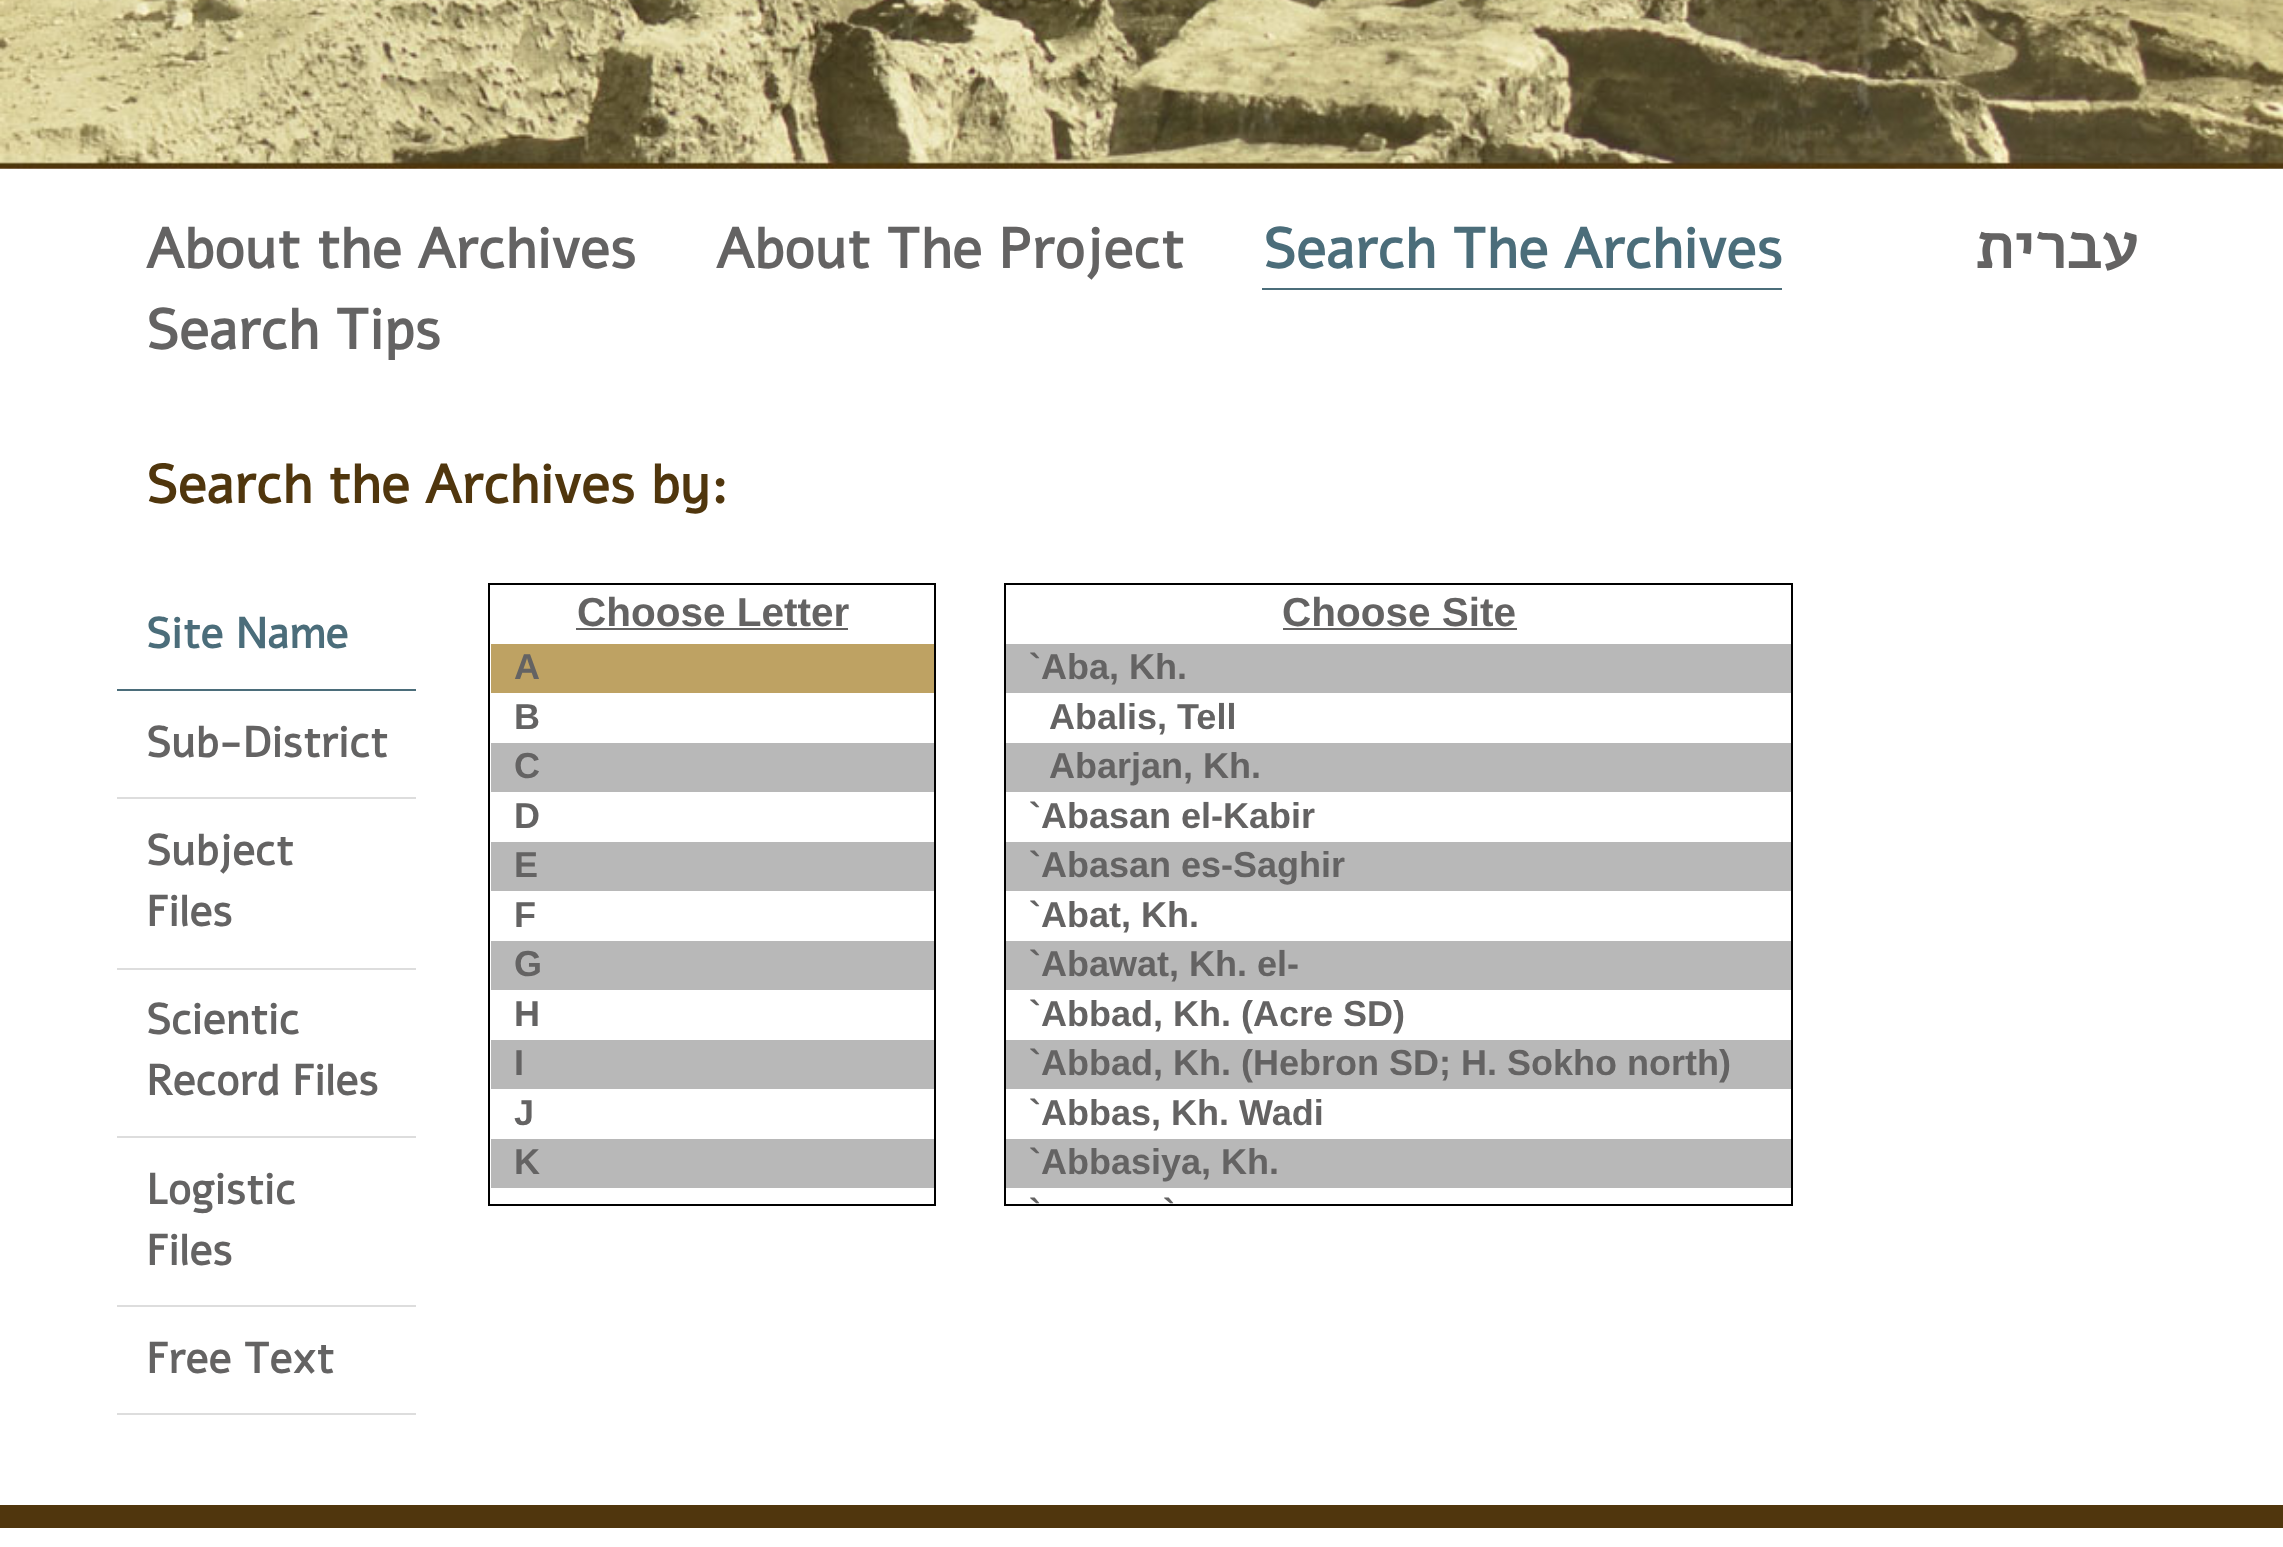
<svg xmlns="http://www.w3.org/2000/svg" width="2283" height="1547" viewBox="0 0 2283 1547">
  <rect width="100%" height="100%" fill="rgb(255,255,255)"/>
  <image x="0" y="0" width="2283" height="169" href="pic1.png"/>
  <g font-family="Alef" font-size="56.25" font-weight="bold" fill="rgb(100,99,99)">
    <text x="146" y="268">About the Archives</text>
    <text x="716" y="268">About The Project</text>
  </g>
  <text x="1263" y="268" font-family="Alef" font-size="56.25" font-weight="bold" fill="rgb(75,109,122)">Search The Archives</text>
  <rect x="1262" y="288" width="520" height="2" fill="rgb(75,109,122)"/>
  <text x="2137" y="268" font-family="Alef" font-size="65" font-weight="bold" direction="rtl" fill="rgb(100,99,99)">עברית</text>
  <text x="146" y="349" font-family="Alef" font-size="56.25" font-weight="bold" fill="rgb(100,99,99)">Search Tips</text>
  <text x="146" y="503" font-family="Alef" font-size="54" font-weight="bold" fill="rgb(80,54,13)">Search the Archives by:</text>
  <rect x="117" y="689" width="299" height="2" fill="rgb(75,109,122)"/>
  <text x="146" y="648" font-family="Alef" font-size="42.75" font-weight="bold" fill="rgb(75,109,122)">Site Name</text>
  <rect x="117" y="797" width="299" height="2" fill="rgb(221,221,221)"/>
  <text x="146" y="757" font-family="Alef" font-size="42.75" font-weight="bold" fill="rgb(100,99,99)">Sub-District</text>
  <rect x="117" y="968" width="299" height="2" fill="rgb(221,221,221)"/>
  <g font-family="Alef" font-size="42.75" font-weight="bold" fill="rgb(100,99,99)">
    <text>
      <tspan x="146" y="865">Subject</tspan>
      <tspan x="146" y="926">Files</tspan>
    </text>
  </g>
  <rect x="117" y="1136" width="299" height="2" fill="rgb(221,221,221)"/>
  <g font-family="Alef" font-size="42.75" font-weight="bold" fill="rgb(100,99,99)">
    <text>
      <tspan x="146" y="1034">Scientic</tspan>
      <tspan x="146" y="1095">Record Files</tspan>
    </text>
  </g>
  <rect x="117" y="1305" width="299" height="2" fill="rgb(221,221,221)"/>
  <g font-family="Alef" font-size="42.75" font-weight="bold" fill="rgb(100,99,99)">
    <text>
      <tspan x="146" y="1204">Logistic</tspan>
      <tspan x="146" y="1265">Files</tspan>
    </text>
  </g>
  <rect x="117" y="1413" width="299" height="2" fill="rgb(221,221,221)"/>
  <text x="146" y="1373" font-family="Alef" font-size="42.75" font-weight="bold" fill="rgb(100,99,99)">Free Text</text>
  <rect x="489" y="584" width="446" height="621" fill="none" stroke="rgb(0,0,0)" stroke-width="2"/>
  <text x="577" y="626" font-family="Liberation Sans" font-size="40.5" font-weight="bold" fill="rgb(100,99,99)">Choose Letter</text>
  <rect x="576" y="628" width="272" height="2" fill="rgb(100,99,99)"/>
  <rect x="491" y="644" width="443" height="49" fill="rgb(190,162,99)"/>
  <g font-family="Liberation Sans" font-size="36" font-weight="bold" fill="rgb(100,99,99)">
    <text>
      <tspan x="514" y="679">A</tspan>
      <tspan x="514" y="729">B</tspan>
    </text>
  </g>
  <rect x="491" y="743" width="443" height="49" fill="rgb(184,184,184)"/>
  <g font-family="Liberation Sans" font-size="36" font-weight="bold" fill="rgb(100,99,99)">
    <text>
      <tspan x="514" y="778">C</tspan>
      <tspan x="514" y="828">D</tspan>
    </text>
  </g>
  <rect x="491" y="842" width="443" height="49" fill="rgb(184,184,184)"/>
  <g font-family="Liberation Sans" font-size="36" font-weight="bold" fill="rgb(100,99,99)">
    <text>
      <tspan x="514" y="877">E</tspan>
      <tspan x="514" y="927">F</tspan>
    </text>
  </g>
  <rect x="491" y="941" width="443" height="49" fill="rgb(184,184,184)"/>
  <g font-family="Liberation Sans" font-size="36" font-weight="bold" fill="rgb(100,99,99)">
    <text>
      <tspan x="514" y="976">G</tspan>
      <tspan x="514" y="1026">H</tspan>
    </text>
  </g>
  <rect x="491" y="1040" width="443" height="49" fill="rgb(184,184,184)"/>
  <g font-family="Liberation Sans" font-size="36" font-weight="bold" fill="rgb(100,99,99)">
    <text>
      <tspan x="514" y="1075">I</tspan>
      <tspan x="514" y="1125">J</tspan>
    </text>
  </g>
  <rect x="491" y="1139" width="443" height="49" fill="rgb(184,184,184)"/>
  <text x="514" y="1174" font-family="Liberation Sans" font-size="36" font-weight="bold" fill="rgb(100,99,99)">K</text>
  <rect x="1005" y="584" width="787" height="621" fill="none" stroke="rgb(0,0,0)" stroke-width="2"/>
  <text x="1282" y="626" font-family="Liberation Sans" font-size="40.5" font-weight="bold" fill="rgb(100,99,99)">Choose Site</text>
  <rect x="1283" y="628" width="234" height="2" fill="rgb(100,99,99)"/>
  <rect x="1006" y="644" width="785" height="49" fill="rgb(184,184,184)"/>
  <g font-family="Liberation Sans" font-size="36" font-weight="bold" fill="rgb(100,99,99)">
    <text x="1029" y="679">`Aba, Kh.</text>
    <text x="1049" y="729">Abalis, Tell</text>
  </g>
  <rect x="1006" y="743" width="785" height="49" fill="rgb(184,184,184)"/>
  <g font-family="Liberation Sans" font-size="36" font-weight="bold" fill="rgb(100,99,99)">
    <text x="1049" y="778">Abarjan, Kh.</text>
    <text x="1029" y="828">`Abasan el-Kabir</text>
  </g>
  <rect x="1006" y="842" width="785" height="49" fill="rgb(184,184,184)"/>
  <g font-family="Liberation Sans" font-size="36" font-weight="bold" fill="rgb(100,99,99)">
    <text>
      <tspan x="1029" y="877">`Abasan es-Saghir</tspan>
      <tspan x="1029" y="927">`Abat, Kh.</tspan>
    </text>
  </g>
  <rect x="1006" y="941" width="785" height="49" fill="rgb(184,184,184)"/>
  <g font-family="Liberation Sans" font-size="36" font-weight="bold" fill="rgb(100,99,99)">
    <text>
      <tspan x="1029" y="976">`Abawat, Kh. el-</tspan>
      <tspan x="1029" y="1026">`Abbad, Kh. (Acre SD)</tspan>
    </text>
  </g>
  <rect x="1006" y="1040" width="785" height="49" fill="rgb(184,184,184)"/>
  <g font-family="Liberation Sans" font-size="36" font-weight="bold" fill="rgb(100,99,99)">
    <text>
      <tspan x="1029" y="1075">`Abbad, Kh. (Hebron SD; H. Sokho north)</tspan>
      <tspan x="1029" y="1125">`Abbas, Kh. Wadi</tspan>
    </text>
  </g>
  <rect x="1006" y="1139" width="785" height="49" fill="rgb(184,184,184)"/>
  <g font-family="Liberation Sans" font-size="36" font-weight="bold" fill="rgb(100,99,99)">
    <text>
      <tspan x="1029" y="1174">`Abbasiya, Kh.</tspan>
      <tspan x="1029" y="1224">`</tspan>
    </text>
    <text x="1163" y="1224">`</text>
  </g>
  <rect x="0" y="1505" width="2283" height="23" fill="rgb(80,54,13)"/>
</svg>
